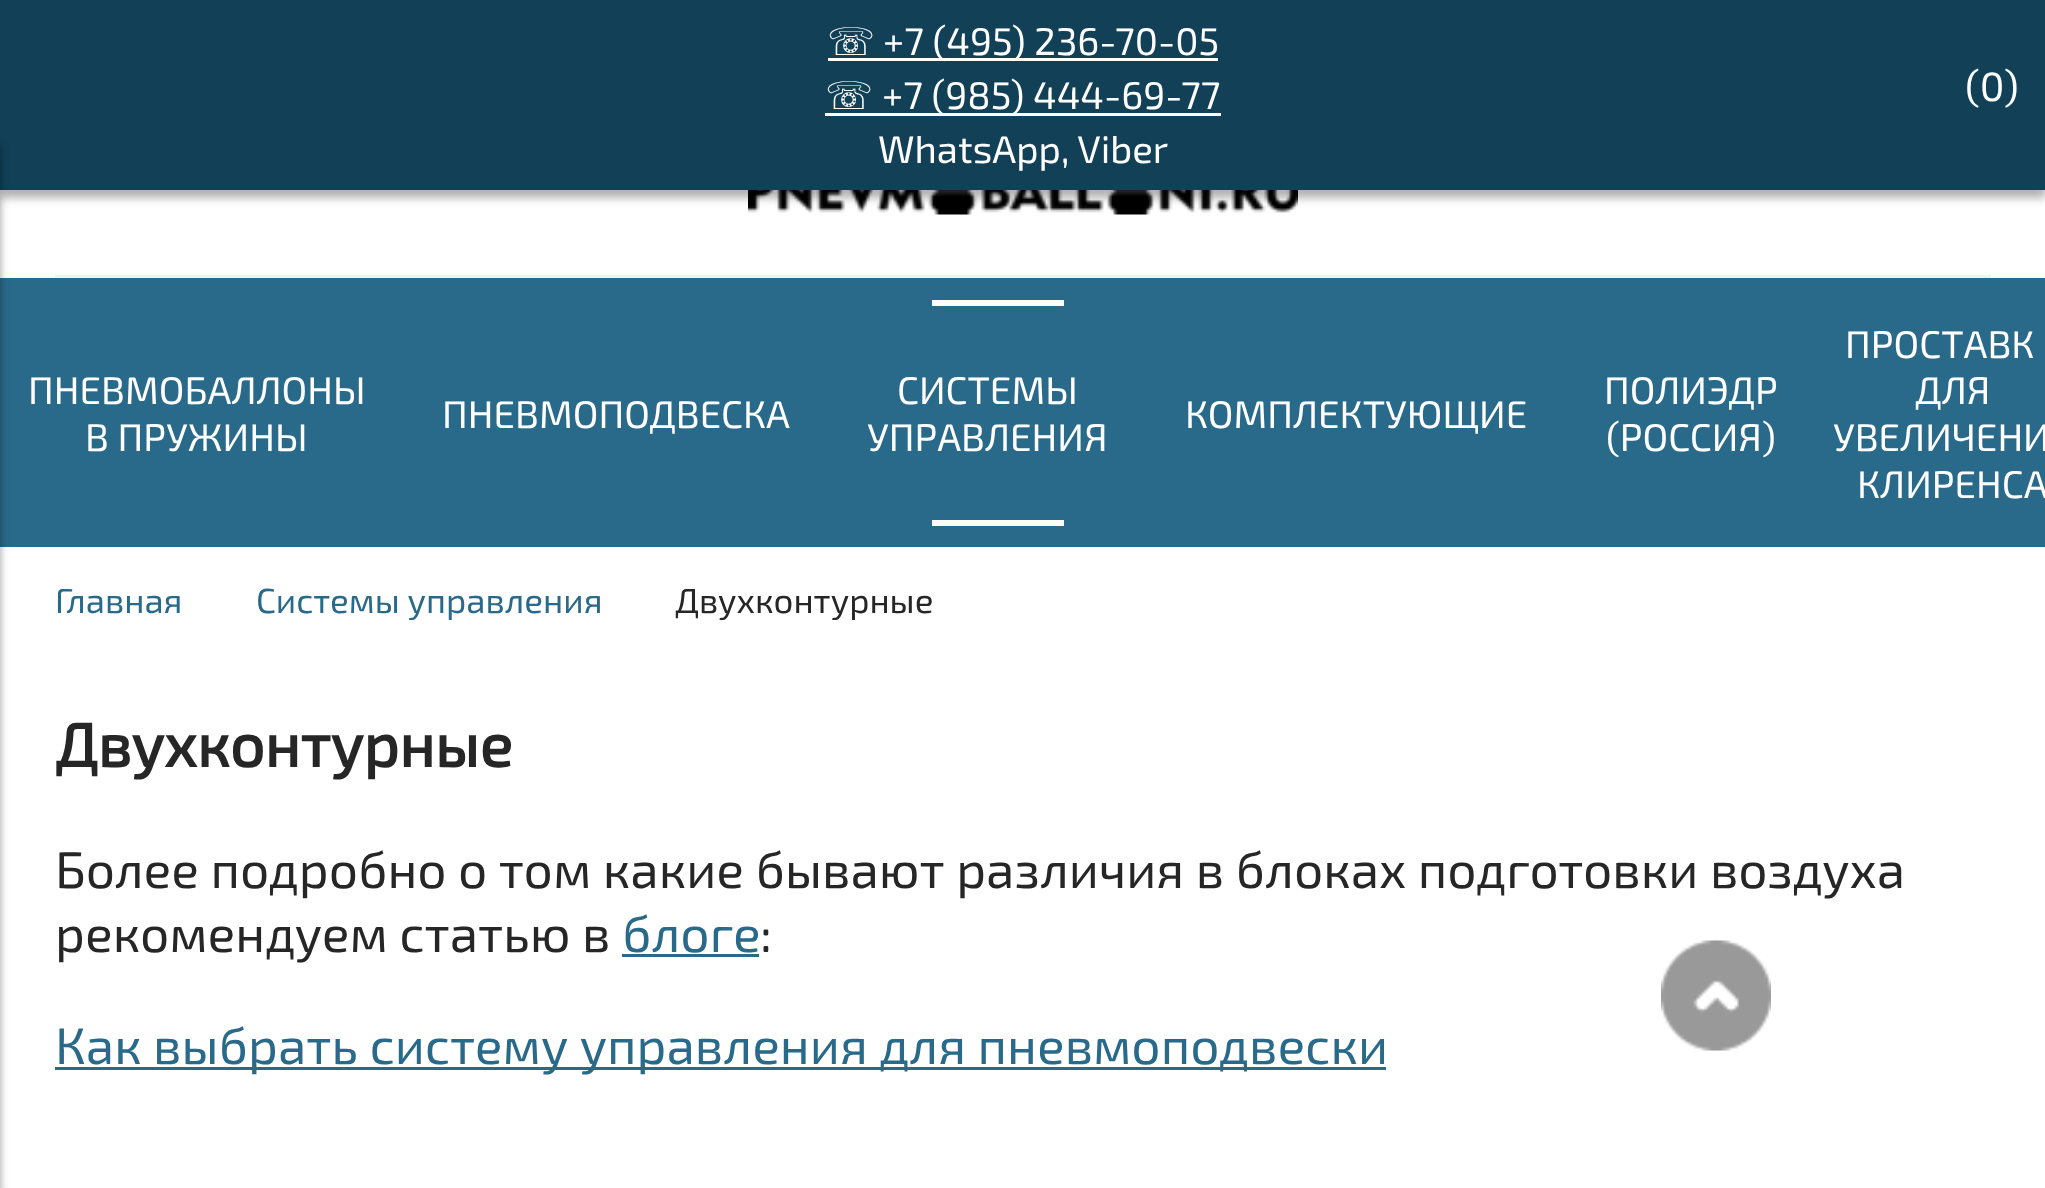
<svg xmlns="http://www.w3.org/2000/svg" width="2045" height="1188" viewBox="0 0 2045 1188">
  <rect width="100%" height="100%" fill="rgb(255,255,255)"/>
  <image x="748" y="190" width="550" height="25" href="pic1.png"/>
  <rect x="0" y="8" width="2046" height="190" fill="rgba(0,0,0,0.3)" filter="blur(4px)"/>
  <rect x="0" y="0" width="2045" height="190" fill="rgb(17,64,87)"/>
  <text x="827" y="55" font-family="DejaVu Sans" font-size="38.5" fill="rgb(255,255,255)">☏</text>
  <rect x="828" y="58" width="390" height="3" fill="rgb(255,255,255)"/>
  <text x="883" y="55" font-family="'Exo 2'" font-size="38.5" fill="rgb(255,255,255)">+7 (495) 236-70-05</text>
  <text x="825" y="109" font-family="DejaVu Sans" font-size="38.5" fill="rgb(255,255,255)">☏</text>
  <rect x="825" y="113" width="396" height="3" fill="rgb(255,255,255)"/>
  <g font-family="'Exo 2'" font-size="38.5" fill="rgb(255,255,255)">
    <text x="882" y="109">+7 (985) 444-69-77</text>
    <text x="878" y="163" word-spacing="-1">WhatsApp, Viber</text>
  </g>
  <g font-family="'Exo 2'" font-size="41" fill="rgb(255,255,255)">
    <text x="1965" y="101">(0</text>
    <text x="2004" y="101">)</text>
  </g>
  <rect x="0" y="278" width="2045" height="269" fill="rgb(41,106,138)"/>
  <rect x="-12" y="146" width="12" height="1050" fill="rgba(0,0,0,0.4)" filter="blur(4px)"/>
  <rect x="55" y="275" width="1936" height="3" fill="rgb(242,242,242)"/>
  <g font-family="'Exo 2'" font-size="38.5" fill="rgb(255,255,255)">
    <text x="28" y="404">ПНЕВМОБАЛЛОНЫ</text>
    <text x="85" y="451">В ПРУЖИНЫ</text>
    <text x="442" y="428">ПНЕВМОПОДВЕСКА</text>
  </g>
  <rect x="932" y="300" width="132" height="6" fill="rgb(255,255,255)"/>
  <g font-family="'Exo 2'" font-size="38.5" fill="rgb(255,255,255)">
    <text x="897" y="404">СИСТЕМЫ</text>
    <text x="867" y="451">УПРАВЛЕНИЯ</text>
  </g>
  <rect x="932" y="520" width="132" height="6" fill="rgb(255,255,255)"/>
  <g font-family="'Exo 2'" font-size="38.5" fill="rgb(255,255,255)">
    <text x="1185" y="428">КОМПЛЕКТУЮЩИЕ</text>
    <text x="1604" y="404">ПОЛИЭДР</text>
    <text x="1606" y="451">(РОССИЯ)</text>
    <text x="1845" y="358">ПРОСТАВК</text>
    <text x="1915" y="404">ДЛЯ</text>
    <text x="1833" y="451">УВЕЛИЧЕНИ</text>
    <text x="1857" y="498">КЛИРЕНСА</text>
  </g>
  <g font-family="'Exo 2'" font-size="34.75" fill="rgb(41,106,138)">
    <text x="55" y="613">Главная</text>
    <text x="256" y="613">Системы управления</text>
  </g>
  <text x="675" y="613" font-family="'Exo 2'" font-size="34.75" fill="rgb(38,38,38)">Двухконтурные</text>
  <text x="55" y="767" font-family="'Exo 2'" font-size="61.5" font-weight="bold" fill="rgb(38,38,38)">Двухконтурные</text>
  <g font-family="'Exo 2'" font-size="51.35" fill="rgb(38,38,38)">
    <text>
      <tspan x="55" y="888">Более подробно о том какие бывают различия в блоках подготовки воздуха</tspan>
      <tspan x="55" y="952">рекомендуем статью в</tspan>
    </text>
  </g>
  <text x="622" y="952" font-family="'Exo 2'" font-size="51.35" fill="rgb(41,106,138)">блоге</text>
  <text x="760" y="952" font-family="'Exo 2'" font-size="51.35" fill="rgb(38,38,38)">:</text>
  <rect x="622" y="954" width="137" height="3" fill="rgb(41,106,138)"/>
  <rect x="55" y="1067" width="1331" height="3" fill="rgb(41,106,138)"/>
  <text x="55" y="1064" font-family="'Exo 2'" font-size="51.35" fill="rgb(41,106,138)">Как выбрать систему управления для пневмоподвески</text>
  <image x="1661" y="940" width="110" height="111" href="pic2.png"/>
</svg>
